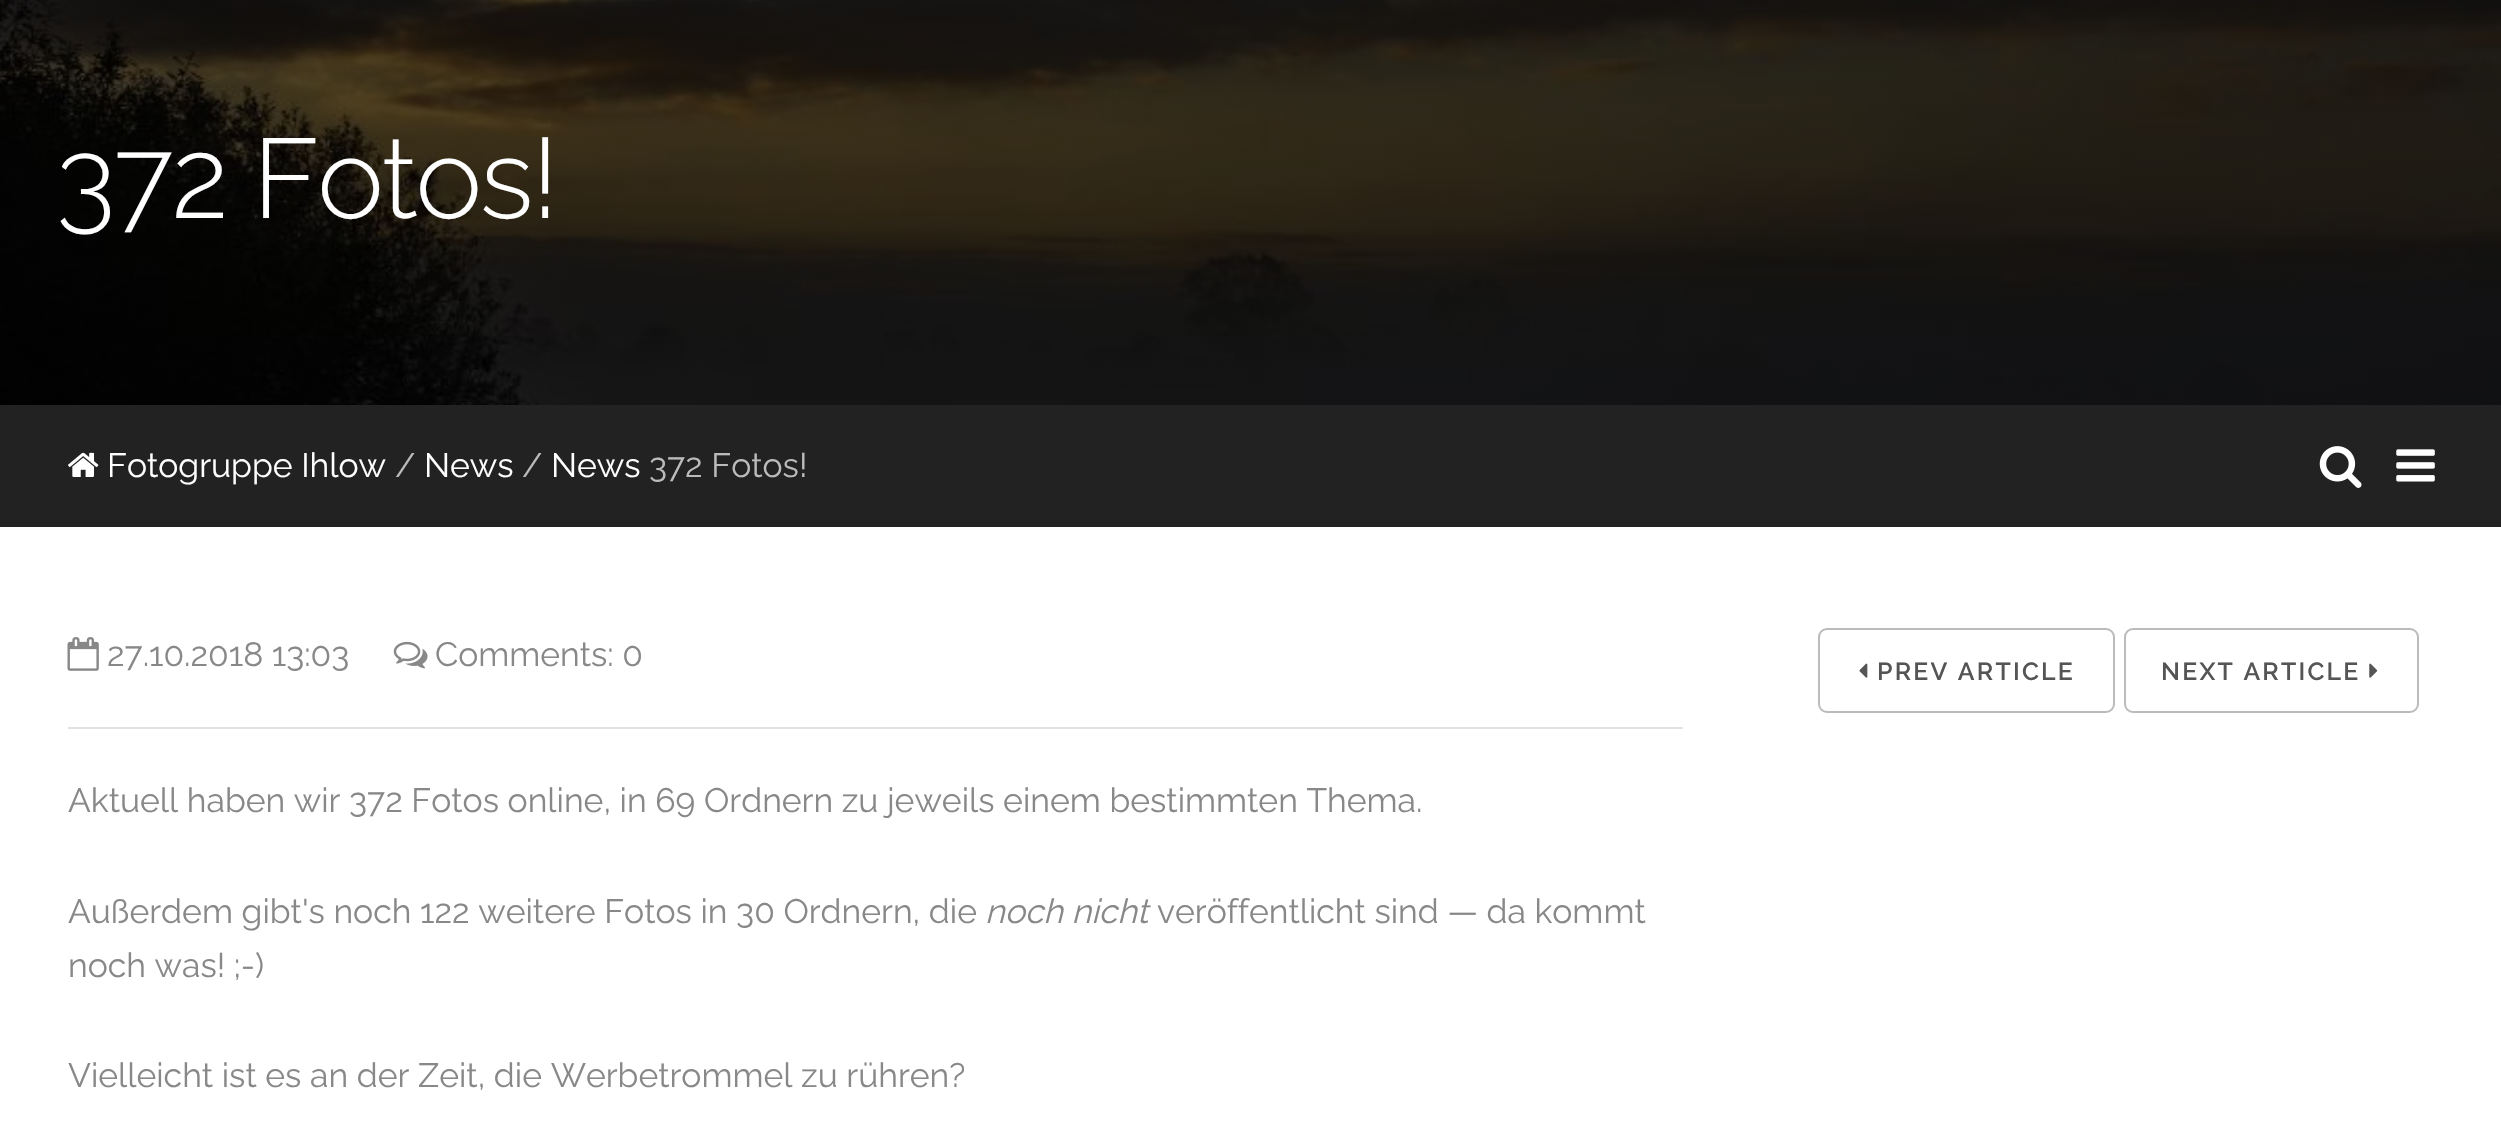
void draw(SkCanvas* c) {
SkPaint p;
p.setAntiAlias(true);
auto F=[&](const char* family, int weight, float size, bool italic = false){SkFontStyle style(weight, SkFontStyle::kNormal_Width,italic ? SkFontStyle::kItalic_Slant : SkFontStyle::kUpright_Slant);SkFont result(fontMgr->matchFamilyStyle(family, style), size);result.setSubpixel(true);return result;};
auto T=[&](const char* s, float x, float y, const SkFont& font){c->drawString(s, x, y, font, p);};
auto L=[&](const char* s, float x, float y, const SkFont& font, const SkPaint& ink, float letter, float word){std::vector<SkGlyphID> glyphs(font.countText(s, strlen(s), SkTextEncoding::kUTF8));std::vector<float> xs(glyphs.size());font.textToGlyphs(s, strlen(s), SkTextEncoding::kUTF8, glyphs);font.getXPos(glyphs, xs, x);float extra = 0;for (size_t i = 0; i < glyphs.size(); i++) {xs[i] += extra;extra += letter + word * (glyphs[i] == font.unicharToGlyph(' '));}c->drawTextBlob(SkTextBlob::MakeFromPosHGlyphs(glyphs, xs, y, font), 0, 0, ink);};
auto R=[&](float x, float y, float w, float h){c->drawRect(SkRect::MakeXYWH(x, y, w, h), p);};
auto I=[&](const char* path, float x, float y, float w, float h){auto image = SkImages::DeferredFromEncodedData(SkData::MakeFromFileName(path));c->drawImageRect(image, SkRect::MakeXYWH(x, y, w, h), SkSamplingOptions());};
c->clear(0xffffffff);
I("1.png",0,0,2501,405);
auto f1 = F("Raleway",300,112.5);
p.setColor(0xffffffff);
L("372 Fotos!",56,218,f1,p,-2.25,0);
p.setColor(0xff222222);
R(0,405,2501,122);
I("2.png",68,452,31,25);
auto f2 = F("Raleway",400,33.75);
p.setColor(0xffffffff);
T("Fotogruppe Ihlow",107,477,f2);
p.setColor(0xffbbbbbb);
T("/",395,477,f2);
p.setColor(0xffffffff);
T("News",424,477,f2);
p.setColor(0xffbbbbbb);
T("/",522,477,f2);
p.setColor(0xffffffff);
T("News",551,477,f2);
p.setColor(0xffbbbbbb);
T("372 Fotos!",649,477,f2);
I("3.png",2319,446,43,42);
I("4.png",2396,449,39,33);
I("5.png",67,637,32,34);
p.setColor(0xff888888);
T("27.10.2018 13:03",107,666,f2);
I("6.png",393,641,35,28);
T("Comments: 0",435,666,f2);
p.setColor(0xffe1e1e1);
R(68,727,1615,2);
p.setColor(0xff888888);
T("Aktuell haben wir 372 Fotos online, in 69 Ordnern zu jeweils einem bestimmten Thema.",68,812,f2);
T("Außerdem gibt's noch 122 weitere Fotos in 30 Ordnern, die",68,923,f2);
auto f3 = F("Raleway",400,33.75,true);
T("noch nicht",985,923,f3);
T("veröffentlicht sind — da kommt",1157,923,f2);
T("noch was! ;-)",68,977,f2);
T("Vielleicht ist es an der Zeit, die Werbetrommel zu rühren?",68,1087,f2);
p.setStroke(true);
p.setStrokeWidth(2);
p.setColor(0xffbbbbbb);
c->drawRoundRect(SkRect::MakeXYWH(1819,629,295,83),8,8,p);
I("7.png",1859,663,9,15);
auto f4 = F("Raleway",600,24.75);
p.setStroke(false);
p.setColor(0xff555555);
L("PREV ARTICLE",1877,680,f4,p,2.25,0);
p.setStroke(true);
p.setColor(0xffbbbbbb);
c->drawRoundRect(SkRect::MakeXYWH(2125,629,293,83),8,8,p);
p.setStroke(false);
p.setColor(0xff555555);
L("NEXT ARTICLE",2161,680,f4,p,2.25,0);
I("8.png",2369,663,9,15);
}
